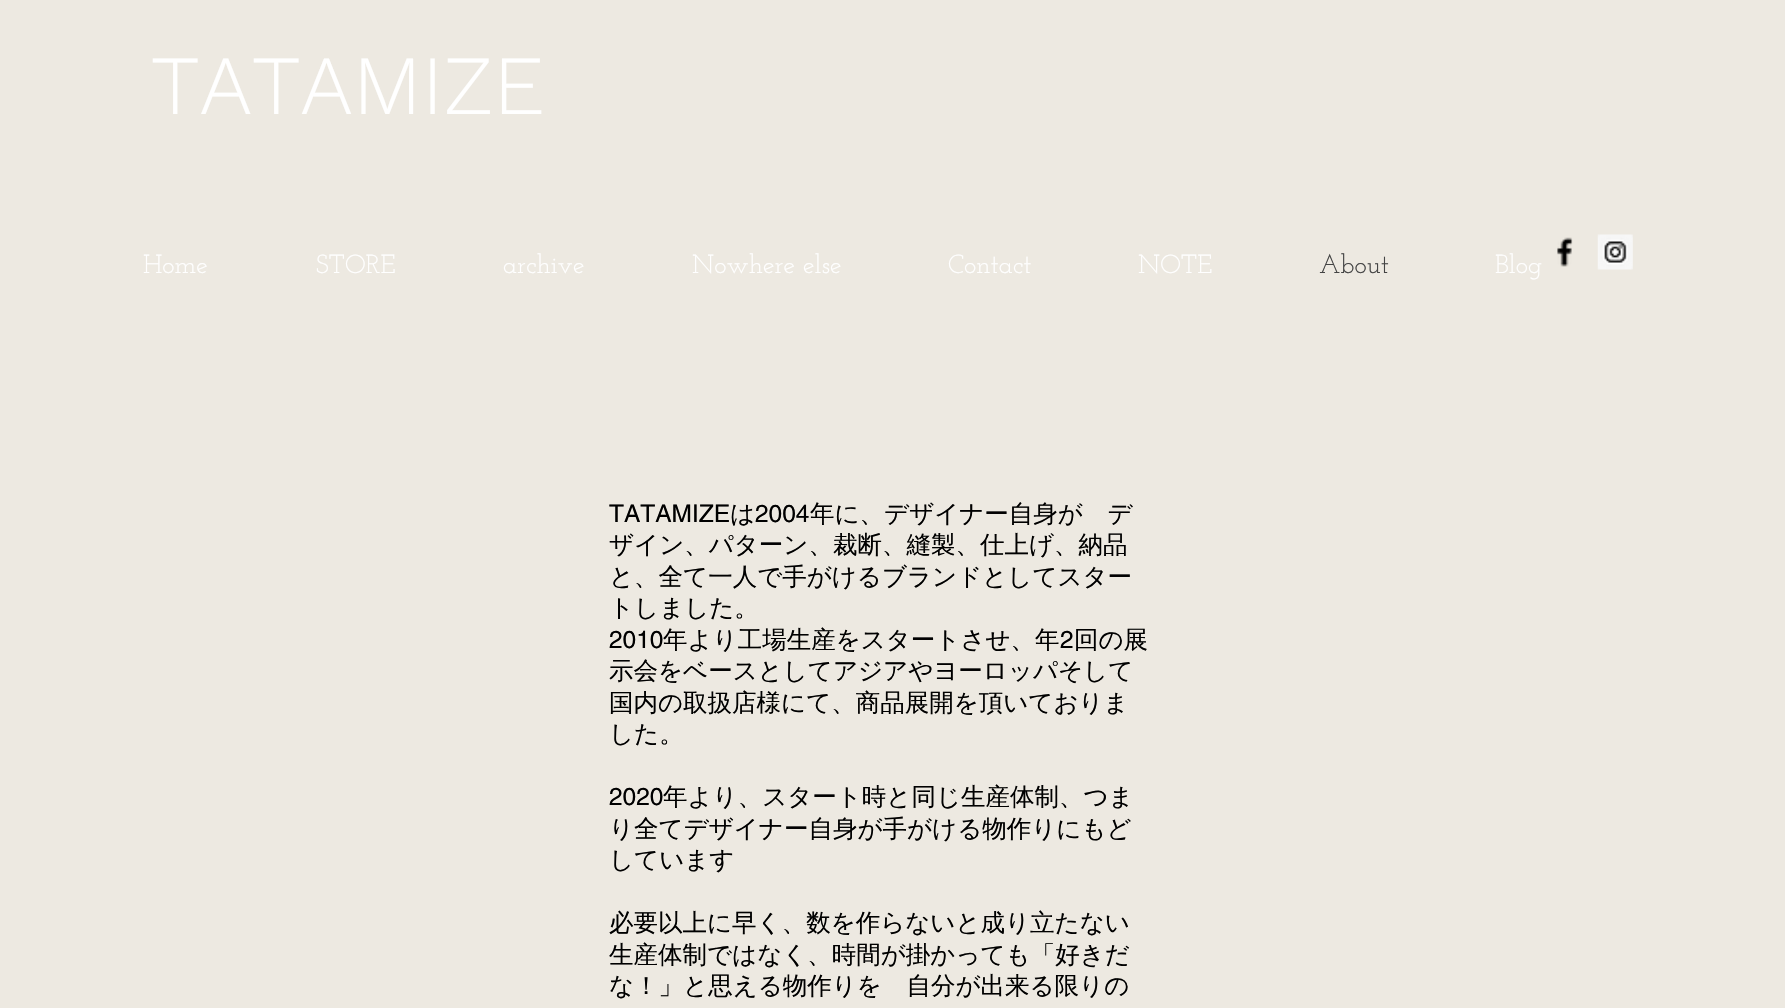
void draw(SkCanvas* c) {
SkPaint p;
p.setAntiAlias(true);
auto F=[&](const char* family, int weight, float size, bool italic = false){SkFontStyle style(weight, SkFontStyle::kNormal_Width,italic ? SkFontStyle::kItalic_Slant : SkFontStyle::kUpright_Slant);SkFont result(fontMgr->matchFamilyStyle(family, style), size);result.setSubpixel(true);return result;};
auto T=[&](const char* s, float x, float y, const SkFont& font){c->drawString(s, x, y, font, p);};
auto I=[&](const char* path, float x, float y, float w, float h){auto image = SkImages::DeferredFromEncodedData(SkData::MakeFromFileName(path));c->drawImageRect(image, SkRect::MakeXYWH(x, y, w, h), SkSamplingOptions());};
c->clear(0xffede9e1);
auto f1 = F("Work Sans",300,84);
p.setColor(0xffffffff);
T("TATAMIZE",151,114,f1);
auto f2 = F("Josefin Slab",400,26.25);
T("Home",143,273,f2);
T("STORE",316,273,f2);
T("archive",503,273,f2);
T("Nowhere else",692,273,f2);
T("Contact",948,273,f2);
T("NOTE",1138,273,f2);
p.setColor(0xff444444);
T("About",1319,273,f2);
p.setColor(0xffffffff);
T("Blog",1495,273,f2);
I("1.png",1557,237,16,30);
I("2.png",1597,234,36,36);
auto f3 = F("helvetica",400,24.5);
p.setColor(0xff000000);
T("TATAMIZE",609,522,f3);
auto f4 = F("WenQuanYi Zen Hei",500,24.5);
T("は",730,522,f4);
T("2004",755,522,f3);
T("年に、デザイナー自身が　デ",810,522,f4);
T("ザイン、パターン、裁断、縫製、仕上げ、納品",609,553,f4);
T("と、全て一人で手がけるブランドとしてスター",609,585,f4);
T("トしました。",609,616,f4);
T("2010",609,648,f3);
T("年より工場生産をスタートさせ、年",663,648,f4);
T("2",1060,648,f3);
T("回の展",1074,648,f4);
T("示会をベースとしてアジアやヨーロッパそして",609,679,f4);
T("国内の取扱店様にて、商品展開を頂いておりま",609,711,f4);
T("した。",609,742,f4);
T("2020",609,805,f3);
T("年より、スタート時と同じ生産体制、つま",663,805,f4);
T("り全てデザイナー自身が手がける物作りにもど",609,837,f4);
T("しています",609,868,f4);
T("必要以上に早く、数を作らないと成り立たない",609,931,f4);
T("生産体制ではなく、時間が掛かっても「好きだ",609,963,f4);
T("な！」と思える物作りを　自分が出来る限りの",609,994,f4);
}
